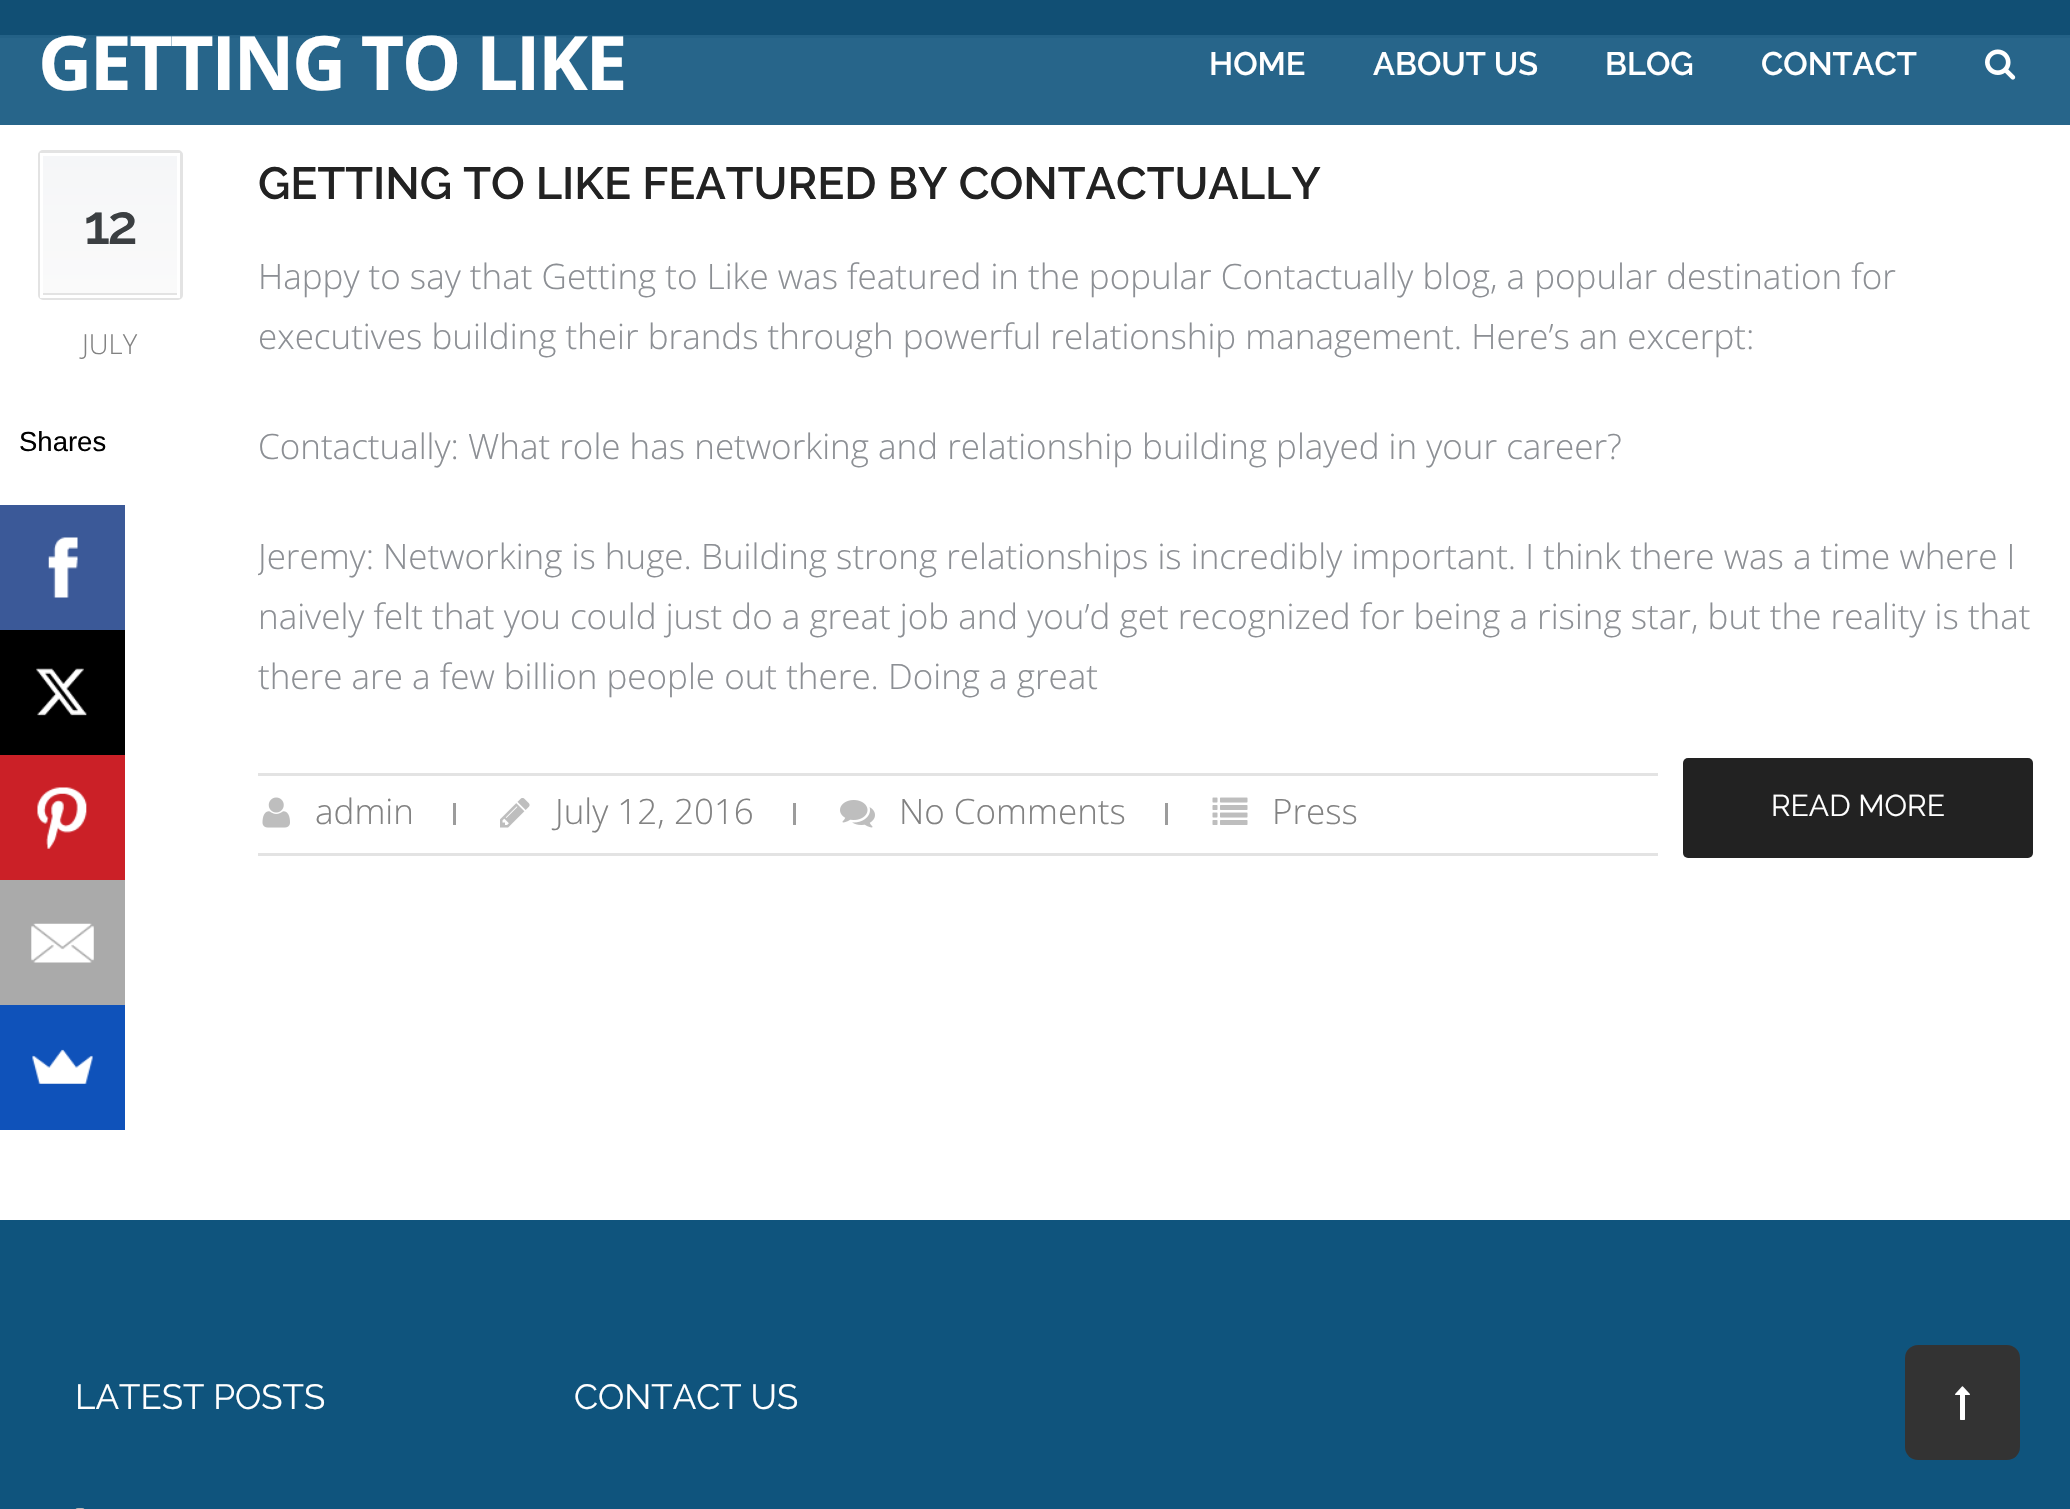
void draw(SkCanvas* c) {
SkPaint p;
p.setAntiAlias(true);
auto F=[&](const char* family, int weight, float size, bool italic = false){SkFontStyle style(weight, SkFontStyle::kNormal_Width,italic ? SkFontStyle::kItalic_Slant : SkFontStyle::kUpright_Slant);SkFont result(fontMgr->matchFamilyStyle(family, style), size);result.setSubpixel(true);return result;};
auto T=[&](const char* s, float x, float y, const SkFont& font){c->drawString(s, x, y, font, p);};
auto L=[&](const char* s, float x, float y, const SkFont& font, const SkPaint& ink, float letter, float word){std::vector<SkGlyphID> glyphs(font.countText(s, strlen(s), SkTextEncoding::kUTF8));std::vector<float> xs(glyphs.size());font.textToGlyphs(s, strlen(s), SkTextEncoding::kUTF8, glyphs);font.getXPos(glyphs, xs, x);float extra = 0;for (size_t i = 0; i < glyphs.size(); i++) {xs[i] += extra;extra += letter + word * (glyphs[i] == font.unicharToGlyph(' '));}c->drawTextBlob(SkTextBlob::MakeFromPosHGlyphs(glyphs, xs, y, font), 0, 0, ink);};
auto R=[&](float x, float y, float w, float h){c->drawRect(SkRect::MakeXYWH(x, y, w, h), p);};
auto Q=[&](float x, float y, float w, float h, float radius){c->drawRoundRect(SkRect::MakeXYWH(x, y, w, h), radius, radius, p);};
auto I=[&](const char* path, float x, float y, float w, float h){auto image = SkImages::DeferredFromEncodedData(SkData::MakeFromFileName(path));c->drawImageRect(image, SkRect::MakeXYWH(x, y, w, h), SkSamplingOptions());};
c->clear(0xffffffff);
p.setColor(0xff27658a);
R(0,38,2070,87);
p.setColor(0xff114f74);
R(0,0,2070,35);
p.setColor(0xff236186);
R(0,35,2070,3);
auto f1 = F("Open Sans",700,75);
p.setColor(0xffffffff);
L("GETTING TO LIKE",38,90,f1,p,-2.5,0);
auto f2 = F("Raleway",600,32.5);
T("HOME",1209,75,f2);
T("ABOUT US",1373,75,f2);
T("BLOG",1605,75,f2);
T("CONTACT",1761,75,f2);
I("1.png",1985,49,31,31);
{
const SkColor colors[] = {0xfff5f6f8,0xfffafafa};
const float stops[] = {0,1};
const SkPoint ends[] = {{110,153}, {110,293}};
p.setShader(SkGradientShader::MakeLinear(ends, colors, stops, 2, SkTileMode::kClamp));
p.setAlpha(255);
}
R(38,153,145,140);
p.setStroke(true);
p.setStrokeWidth(3);
p.setShader(nullptr);
p.setColor(0xffe3e3e3);
c->drawRoundRect(SkRect::MakeXYWH(39.5,151.5,142,147),3.5,3.5,p);
p.setStroke(false);
R(40,293,140,2);
p.setStroke(true);
p.setColor(0xffffffff);
c->drawRect(SkRect::MakeXYWH(41.5,154.5,137,142),p);
auto f3 = F("Raleway",600,55);
p.setStroke(false);
p.setColor(0xff3b3f42);
L("12",84,244,f3,p,-2.5,0);
auto f4 = F("Open Sans",300,27.5);
p.setColor(0xff828282);
T("JULY",82,354,f4);
auto f5 = F("Raleway",600,45);
p.setColor(0xff222222);
T("GETTING TO LIKE FEATURED BY CONTACTUALLY",258,199,f5);
auto f6 = F("Open Sans",300,35);
p.setColor(0xff8c8f94);
T("Happy to say that Getting to Like was featured in the popular Contactually blog, a popular destination for",258,289,f6);
T("executives building their brands through powerful relationship management. Here’s an excerpt:",258,349,f6);
T("Contactually: What role has networking and relationship building played in your career?",258,459,f6);
c->save();
c->clipRect(SkRect::MakeXYWH(258,150,1775,708));
T("Jeremy: Networking is huge. Building strong relationships is incredibly important. I think there was a time where I",258,569,f6);
c->restore();
T("naively felt that you could just do a great job and you’d get recognized for being a rising star, but the reality is that",258,629,f6);
T("there are a few billion people out there. Doing a great",258,689,f6);
p.setColor(0xffe3e3e3);
R(258,773,1400,3);
R(258,853,1400,3);
I("2.png",262,797,28,31);
p.setColor(0xff828282);
T("admin",315,824,f6);
p.setColor(0xff9c9c9c);
R(453,803,3,22);
I("3.png",500,798,30,30);
p.setColor(0xff828282);
T("July 12, 2016",555,824,f6);
p.setColor(0xff9c9c9c);
R(793,803,3,22);
I("4.png",840,800,35,28);
p.setColor(0xff828282);
T("No Comments",899,824,f6);
p.setColor(0xff9c9c9c);
R(1165,803,3,22);
I("5.png",1212,797,36,28);
p.setColor(0xff828282);
T("Press",1272,824,f6);
p.setColor(0xff222222);
Q(1683,758,350,100,5);
auto f7 = F("Raleway",400,30);
p.setColor(0xffffffff);
T("READ MORE",1771,816,f7);
p.setColor(0xff0f547d);
R(0,1220,2070,289);
auto f8 = F("Raleway",400,35);
p.setColor(0xffffffff);
T("LATEST POSTS",75,1409,f8);
p.setColor(0xffb7b7b7);
Q(75,1508,10,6,5);
p.setColor(0xffffffff);
T("CONTACT US",574,1409,f8);
auto f9 = F("Liberation Sans",400,27.5);
p.setColor(0xff000000);
T("Shares",19,451,f9);
p.setColor(0xff3b5998);
R(0,505,125,125);
I("6.png",48,537,30,61);
p.setColor(0xff000000);
R(0,630,125,125);
I("7.png",36,668,51,48);
p.setColor(0xffcb2027);
R(0,755,125,125);
I("8.png",37,787,50,62);
p.setColor(0xffaaaaaa);
R(0,880,125,125);
I("9.png",31,923,63,40);
p.setColor(0xff0f52ba);
R(0,1005,125,125);
I("10.png",32,1049,61,35);
p.setColor(0xff333333);
Q(1905,1345,115,115,13);
I("11.png",1955,1386,15,34);
}
